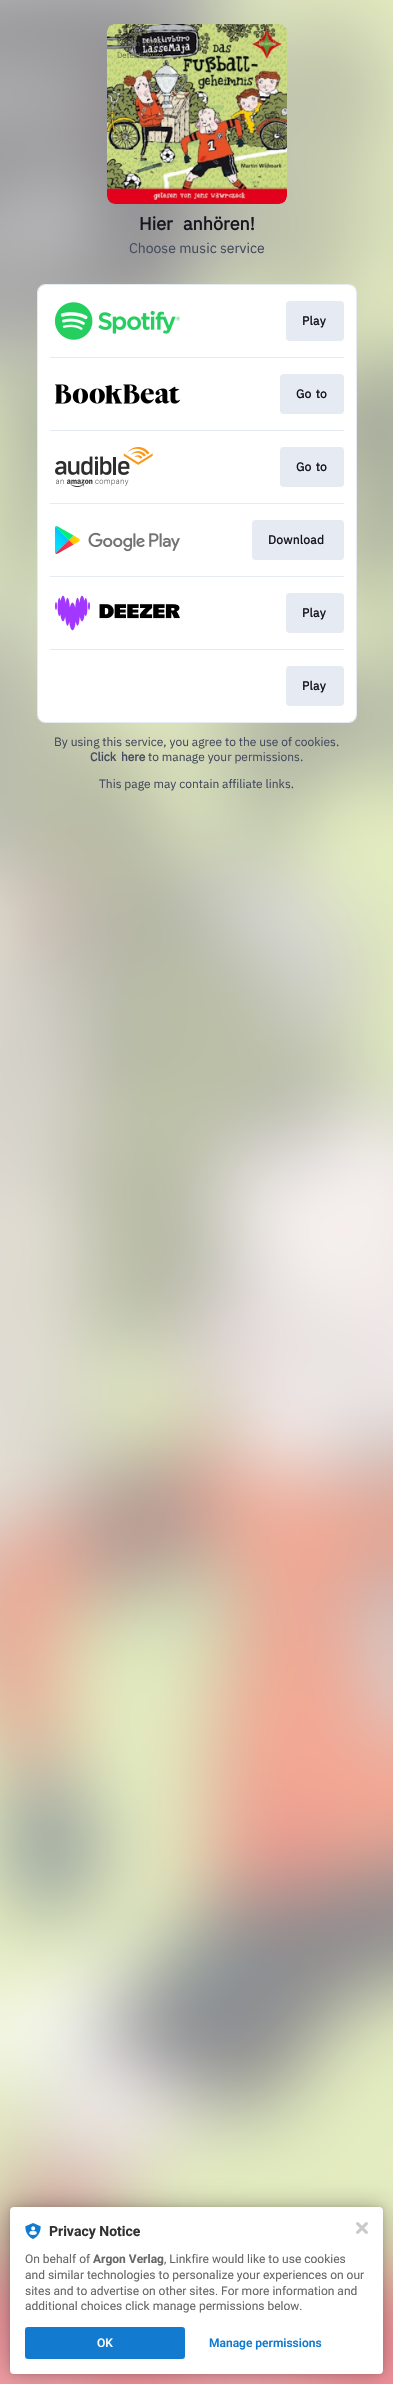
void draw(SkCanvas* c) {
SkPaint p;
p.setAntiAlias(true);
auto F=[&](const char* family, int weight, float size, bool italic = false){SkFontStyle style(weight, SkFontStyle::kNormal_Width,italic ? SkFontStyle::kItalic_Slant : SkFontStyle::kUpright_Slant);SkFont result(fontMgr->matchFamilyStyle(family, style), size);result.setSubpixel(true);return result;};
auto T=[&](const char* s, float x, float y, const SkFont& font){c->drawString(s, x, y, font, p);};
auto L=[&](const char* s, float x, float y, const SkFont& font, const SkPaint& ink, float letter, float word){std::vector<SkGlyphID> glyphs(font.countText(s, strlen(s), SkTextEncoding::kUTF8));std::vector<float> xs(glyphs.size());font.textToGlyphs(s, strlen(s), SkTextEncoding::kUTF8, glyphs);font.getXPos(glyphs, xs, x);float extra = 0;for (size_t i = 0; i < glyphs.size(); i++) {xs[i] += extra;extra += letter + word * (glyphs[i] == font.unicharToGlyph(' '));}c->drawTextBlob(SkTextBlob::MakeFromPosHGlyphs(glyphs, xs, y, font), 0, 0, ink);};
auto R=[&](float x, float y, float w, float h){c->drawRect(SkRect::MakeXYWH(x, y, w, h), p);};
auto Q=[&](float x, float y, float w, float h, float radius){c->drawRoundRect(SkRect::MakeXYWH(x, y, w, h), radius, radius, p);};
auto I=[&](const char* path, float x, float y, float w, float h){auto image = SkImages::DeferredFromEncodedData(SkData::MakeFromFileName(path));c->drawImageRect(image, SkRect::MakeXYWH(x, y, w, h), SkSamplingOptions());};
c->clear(0xffffffff);
I("1.png",0,0,393,2384);
I("2.png",107,24,180,180);
auto f1 = F("IBM Plex Sans",400,8);
p.setColor(0xff595a51);
T("Martin Widm…",117,46,f1);
p.setColor(0xff747a5a);
T("Detektivbüro…",117,58,f1);
p.setColor(0xff9a804a);
T("0:00",260,46,f1);
auto f2 = F("IBM Plex Sans",700,18);
p.setColor(0xff181721);
L("Hier anhören!",139,230,f2,p,0,6);
auto f3 = F("IBM Plex Sans",400,14);
p.setColor(0xff454b5f);
T("Choose music service",129,253,f3);
p.setStroke(true);
p.setStrokeWidth(1);
p.setColor(0xffe6eaf2);
c->drawRoundRect(SkRect::MakeXYWH(37.5,284.5,319,438),7.5,7.5,p);
p.setStroke(false);
p.setColor(0xffffffff);
Q(38,285,318,437,7);
I("3.png",55,302,125,38);
p.setColor(0xffe6eaf2);
Q(286,301,58,40,4);
auto f4 = F("IBM Plex Sans",700,12);
p.setColor(0xff181721);
L("Play",302,325,f4,p,.25,0);
p.setColor(0xffe6eaf2);
R(50,357,294,1);
I("4.png",55,384,125,20);
Q(280,374,64,40,4);
p.setColor(0xff181721);
L("Go to",296,398,f4,p,.25,1);
p.setColor(0xffe6eaf2);
R(50,430,294,1);
I("5.png",55,447,98,40);
Q(280,447,64,40,4);
p.setColor(0xff181721);
L("Go to",296,471,f4,p,.25,1);
p.setColor(0xffe6eaf2);
R(50,503,294,1);
I("6.png",55,526,125,28);
Q(252,520,92,40,4);
p.setColor(0xff181721);
L("Download",268,544,f4,p,.25,0);
p.setColor(0xffe6eaf2);
R(50,576,294,1);
I("7.png",55,595,125,36);
Q(286,593,58,40,4);
p.setColor(0xff181721);
L("Play",302,617,f4,p,.25,0);
p.setColor(0xffe6eaf2);
R(50,649,294,1);
Q(286,666,58,40,4);
p.setColor(0xff181721);
L("Play",302,690,f4,p,.25,0);
auto f5 = F("IBM Plex Sans",400,12);
p.setColor(0xff454b5f);
T("By using this service, you agree to the use of cookies.",54,746,f5);
L("Click here",90,761,f4,p,0,2);
T("to manage your permissions.",148,761,f5);
T("This page may contain affiliate links.",99,788,f5);
p.setColor(0x1f000000);
p.setMaskFilter(SkMaskFilter::MakeBlur(kNormal_SkBlurStyle, 2));
c->drawRoundRect(SkRect::MakeXYWH(10,2207,373,167),4,4,p);
p.setMaskFilter(nullptr);
p.setColor(0x4d000000);
p.setMaskFilter(SkMaskFilter::MakeBlur(kNormal_SkBlurStyle, 12));
c->drawRoundRect(SkRect::MakeXYWH(10,2207,373,167),4,4,p);
p.setMaskFilter(nullptr);
p.setColor(0xffffffff);
Q(10,2207,373,167,4);
I("8.png",356,2222,12,12);
I("9.png",25,2223,16,16);
auto f6 = F("Roboto",700,14);
p.setColor(0xff323232);
T("Privacy Notice",49,2236,f6);
auto f7 = F("Roboto",400,12);
p.setColor(0xff686868);
T("On behalf of",25,2263,f7);
auto f8 = F("Roboto",700,12);
T("Argon Verlag",93,2263,f8);
T(", Linkfire would like to use cookies",164,2263,f7);
T("and similar technologies to personalize your experiences on our",25,2279,f7);
T("sites and to advertise on other sites. For more information and",25,2295,f7);
T("additional choices click manage permissions below.",25,2310,f7);
p.setColor(0xff137bcf);
Q(25,2327,160,32,3);
auto f9 = F("Roboto",500,12);
p.setColor(0xffffffff);
T("OK",97,2347,f9);
auto f10 = F("Roboto",600,12);
p.setColor(0xff137bcf);
T("Manage permissions",209,2347,f10);
}
